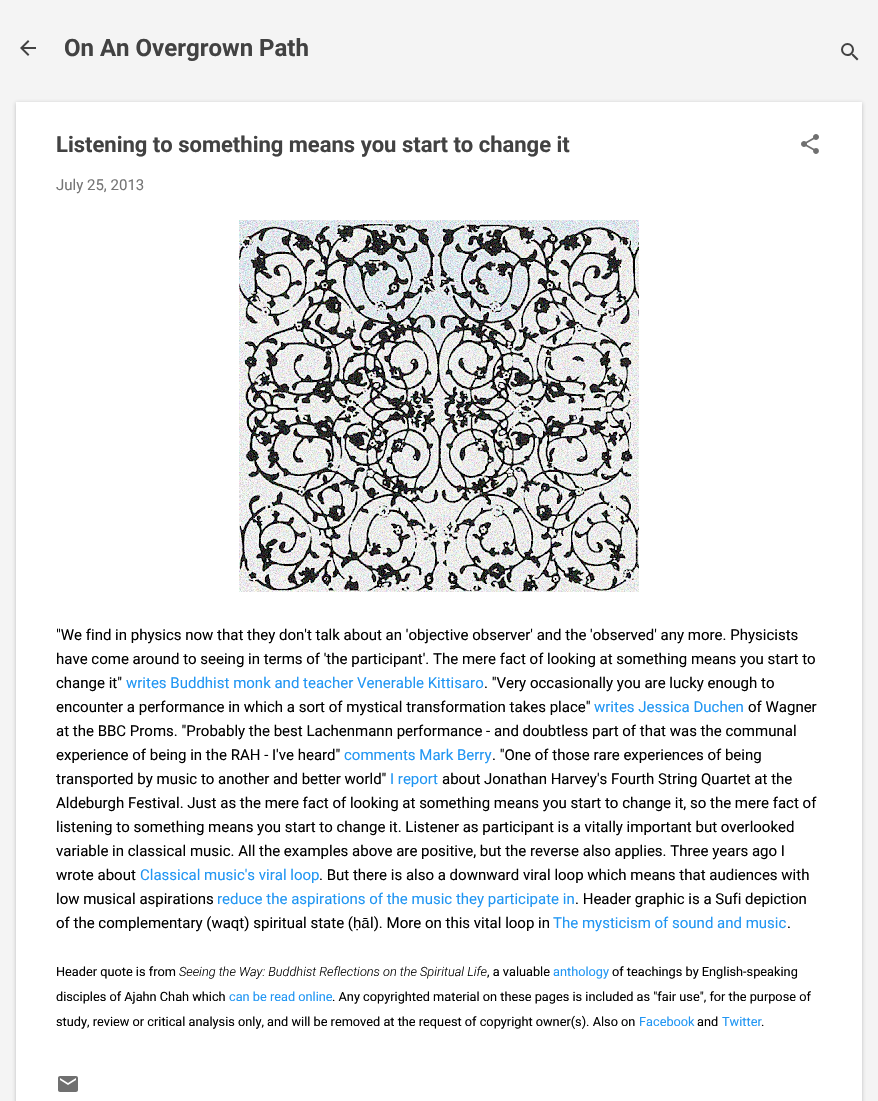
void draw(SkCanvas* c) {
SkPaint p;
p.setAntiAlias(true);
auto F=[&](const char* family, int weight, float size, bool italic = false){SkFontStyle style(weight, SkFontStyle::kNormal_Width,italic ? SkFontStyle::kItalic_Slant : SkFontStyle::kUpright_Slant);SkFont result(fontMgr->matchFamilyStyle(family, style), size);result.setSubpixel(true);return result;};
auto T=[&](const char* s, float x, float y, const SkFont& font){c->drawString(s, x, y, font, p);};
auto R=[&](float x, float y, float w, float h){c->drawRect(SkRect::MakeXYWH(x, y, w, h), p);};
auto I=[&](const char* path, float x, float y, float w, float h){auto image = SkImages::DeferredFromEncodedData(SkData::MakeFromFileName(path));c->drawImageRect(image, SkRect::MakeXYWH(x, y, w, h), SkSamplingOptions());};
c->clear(0xfff4f4f4);
I("1.png",20,40,16,16);
auto f1 = F("Roboto",700,24);
p.setColor(0xff424242);
T("On An Overgrown Path",64,56,f1);
I("2.png",841,43,18,18);
p.setColor(0x4d3c4043);
p.setMaskFilter(SkMaskFilter::MakeBlur(kNormal_SkBlurStyle, 2));
c->drawRect(SkRect::MakeXYWH(16,103,846,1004),p);
p.setMaskFilter(nullptr);
p.setColor(0xffffffff);
R(16,102,846,999);
auto f2 = F("Roboto",700,22);
p.setColor(0xff424242);
T("Listening to something means you start to change it",56,152,f2);
I("3.png",801,134,18,20);
auto f3 = F("Roboto",400,15);
p.setColor(0xff757575);
T("July 25, 2013",56,190,f3);
I("4.png",239,220,400,372);
p.setColor(0xff000000);
T("\"We find in physics now that they don't talk about an 'objective observer' and the 'observed' any more. Physicists",56,640,f3);
T("have come around to seeing in terms of 'the participant'. The mere fact of looking at something means you start to",56,664,f3);
T("change it\"",56,688,f3);
p.setColor(0xff2196f3);
T("writes Buddhist monk and teacher Venerable Kittisaro",126,688,f3);
p.setColor(0xff000000);
T(". \"Very occasionally you are lucky enough to",484,688,f3);
T("encounter a performance in which a sort of mystical transformation takes place\"",56,712,f3);
p.setColor(0xff2196f3);
T("writes Jessica Duchen",594,712,f3);
p.setColor(0xff000000);
T("of Wagner",748,712,f3);
T("at the BBC Proms. \"Probably the best Lachenmann performance - and doubtless part of that was the communal",56,736,f3);
T("experience of being in the RAH - I've heard\"",56,760,f3);
p.setColor(0xff2196f3);
T("comments Mark Berry",344,760,f3);
p.setColor(0xff000000);
T(". \"One of those rare experiences of being",492,760,f3);
T("transported by music to another and better world\"",56,784,f3);
p.setColor(0xff2196f3);
T("I report",390,784,f3);
p.setColor(0xff000000);
T("about Jonathan Harvey's Fourth String Quartet at the",442,784,f3);
T("Aldeburgh Festival. Just as the mere fact of looking at something means you start to change it, so the mere fact of",56,808,f3);
T("listening to something means you start to change it. Listener as participant is a vitally important but overlooked",56,832,f3);
T("variable in classical music. All the examples above are positive, but the reverse also applies. Three years ago I",56,856,f3);
T("wrote about",56,880,f3);
p.setColor(0xff2196f3);
T("Classical music's viral loop",140,880,f3);
p.setColor(0xff000000);
T(". But there is also a downward viral loop which means that audiences with",319,880,f3);
T("low musical aspirations",56,904,f3);
p.setColor(0xff2196f3);
T("reduce the aspirations of the music they participate in",217,904,f3);
p.setColor(0xff000000);
T(". Header graphic is a Sufi depiction",575,904,f3);
T("of the complementary (waqt) spiritual state (",56,928,f3);
auto f4 = F("Liberation Sans",400,15);
T("ḥā",353,928,f4);
T("l). More on this vital loop in",370,928,f3);
p.setColor(0xff2196f3);
T("The mysticism of sound and music",553,928,f3);
p.setColor(0xff000000);
T(".",787,928,f3);
auto f5 = F("Roboto",400,12.75);
T("Header quote is from",56,976,f5);
auto f6 = F("Roboto",300,12.75,true);
T("Seeing the Way: Buddhist Reflections on the Spiritual Life",179,976,f6);
T(", a valuable",487,976,f5);
p.setColor(0xff2196f3);
T("anthology",553,976,f5);
p.setColor(0xff000000);
T("of teachings by English-speaking",612,976,f5);
T("disciples of Ajahn Chah which",56,1001,f5);
p.setColor(0xff2196f3);
T("can be read online",229,1001,f5);
p.setColor(0xff000000);
T(". Any copyrighted material on these pages is included as \"fair use\", for the purpose of",332,1001,f5);
T("study, review or critical analysis only, and will be removed at the request of copyright owner(s). Also on",56,1026,f5);
p.setColor(0xff2196f3);
T("Facebook",639,1026,f5);
p.setColor(0xff000000);
T("and",697,1026,f5);
p.setColor(0xff2196f3);
T("Twitter",722,1026,f5);
p.setColor(0xff000000);
T(".",761,1026,f5);
I("5.png",58,1076,20,16);
}
